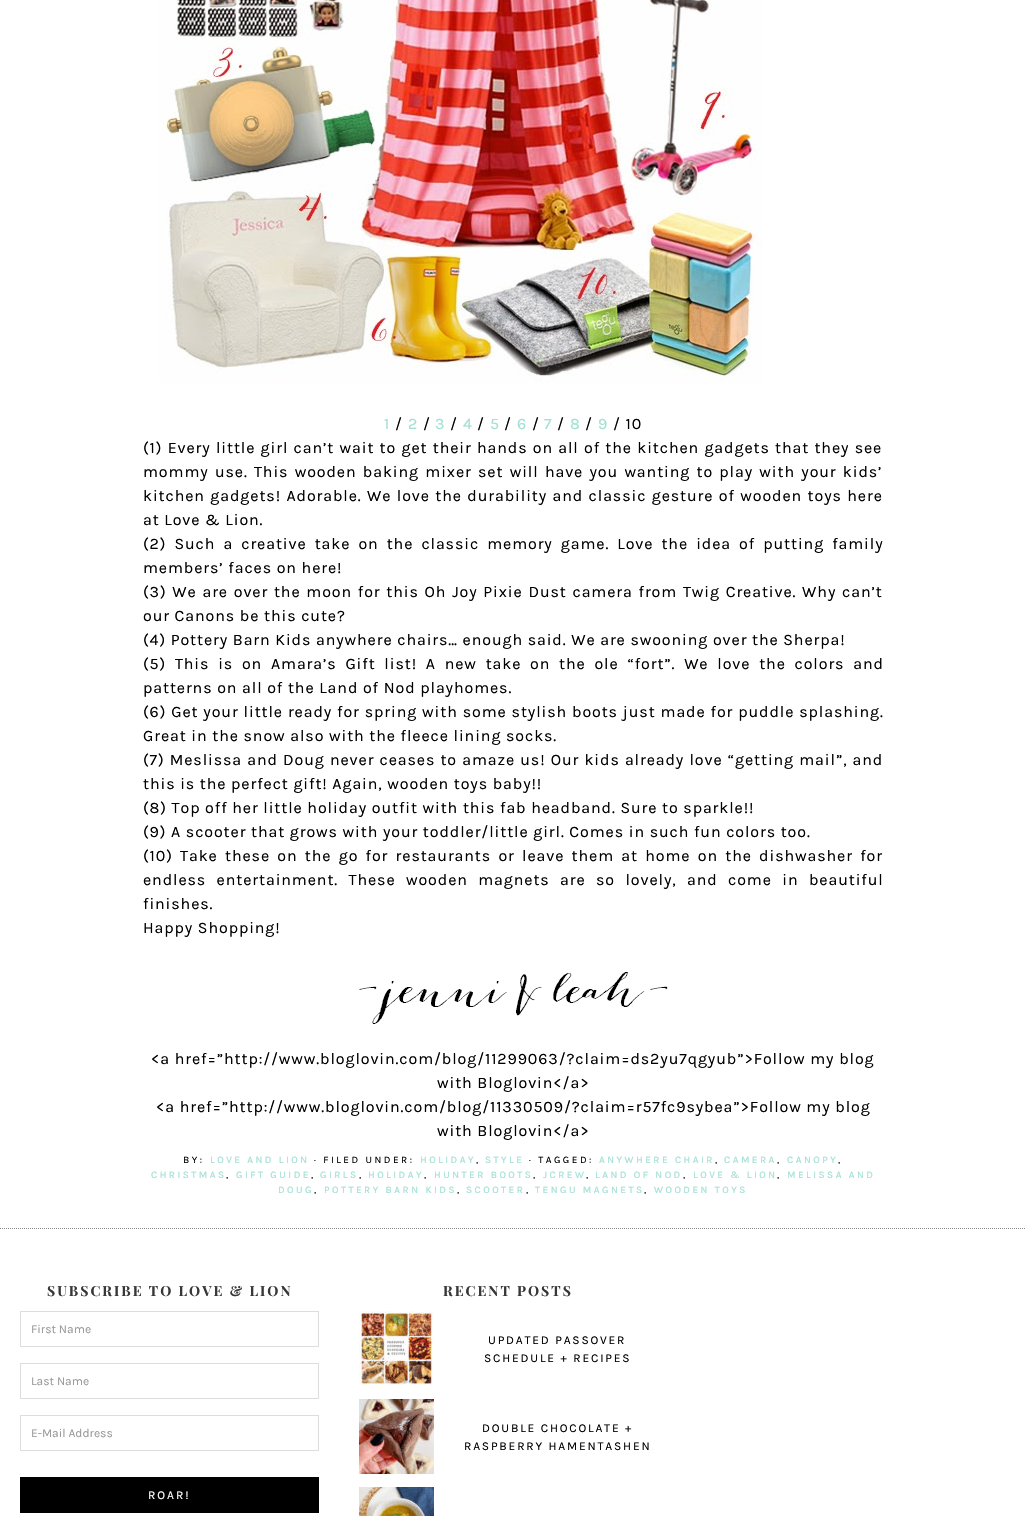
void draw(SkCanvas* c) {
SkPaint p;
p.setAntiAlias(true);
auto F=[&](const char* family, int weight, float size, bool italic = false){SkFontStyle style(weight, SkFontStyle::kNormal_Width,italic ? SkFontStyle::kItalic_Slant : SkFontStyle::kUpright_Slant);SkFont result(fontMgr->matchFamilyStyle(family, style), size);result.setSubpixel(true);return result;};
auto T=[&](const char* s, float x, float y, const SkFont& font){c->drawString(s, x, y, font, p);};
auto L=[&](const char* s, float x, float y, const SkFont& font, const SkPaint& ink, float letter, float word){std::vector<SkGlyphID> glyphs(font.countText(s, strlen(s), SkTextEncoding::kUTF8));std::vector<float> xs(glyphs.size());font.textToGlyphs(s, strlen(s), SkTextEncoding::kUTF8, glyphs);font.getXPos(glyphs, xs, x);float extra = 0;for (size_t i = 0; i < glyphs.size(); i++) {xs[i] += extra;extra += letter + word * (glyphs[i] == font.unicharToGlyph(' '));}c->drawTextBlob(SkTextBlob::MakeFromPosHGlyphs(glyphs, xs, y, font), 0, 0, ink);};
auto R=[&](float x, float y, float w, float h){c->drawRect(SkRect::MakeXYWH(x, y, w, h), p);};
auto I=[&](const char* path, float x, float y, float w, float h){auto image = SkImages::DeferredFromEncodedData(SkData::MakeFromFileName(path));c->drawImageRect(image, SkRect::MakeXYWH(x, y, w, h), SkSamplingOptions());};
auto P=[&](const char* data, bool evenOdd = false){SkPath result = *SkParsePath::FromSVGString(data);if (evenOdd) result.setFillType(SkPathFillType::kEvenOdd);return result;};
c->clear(0xffffffff);
I("1.png",159,0,604,383);
auto f1 = F("Karla",400,16);
p.setColor(0xffa4e0d5);
L("1",384,429,f1,p,.9,0);
p.setColor(0xff000000);
L("/",395,429,f1,p,.9,0);
p.setColor(0xffa4e0d5);
L("2",408,429,f1,p,.9,0);
p.setColor(0xff000000);
L("/",423,429,f1,p,.9,0);
p.setColor(0xffa4e0d5);
L("3",435,429,f1,p,.9,0);
p.setColor(0xff000000);
L("/",450,429,f1,p,.9,0);
p.setColor(0xffa4e0d5);
L("4",463,429,f1,p,.9,0);
p.setColor(0xff000000);
L("/",477,429,f1,p,.9,0);
p.setColor(0xffa4e0d5);
L("5",490,429,f1,p,.9,0);
p.setColor(0xff000000);
L("/",504,429,f1,p,.9,0);
p.setColor(0xffa4e0d5);
L("6",517,429,f1,p,.9,0);
p.setColor(0xff000000);
L("/",532,429,f1,p,.9,0);
p.setColor(0xffa4e0d5);
L("7",544,429,f1,p,.9,0);
p.setColor(0xff000000);
L("/",557,429,f1,p,.9,0);
p.setColor(0xffa4e0d5);
L("8",570,429,f1,p,.9,0);
p.setColor(0xff000000);
L("/",585,429,f1,p,.9,0);
p.setColor(0xffa4e0d5);
L("9",598,429,f1,p,.9,0);
p.setColor(0xff000000);
L("/ 10",613,429,f1,p,.9,0);
L("(1) Every little girl can’t wait to get their hands on all of the kitchen gadgets that they see",143,453,f1,p,.9,.6);
L("mommy use. This wooden baking mixer set will have you wanting to play with your kids’",143,477,f1,p,.9,1.6);
L("kitchen gadgets! Adorable. We love the durability and classic gesture of wooden toys here",143,501,f1,p,.9,.75);
L("at Love & Lion.",143,525,f1,p,.9,0);
L("(2) Such a creative take on the classic memory game. Love the idea of putting family",143,549,f1,p,.9,3.4);
L("members’ faces on here!",143,573,f1,p,.9,0);
L("(3) We are over the moon for this Oh Joy Pixie Dust camera from Twig Creative. Why can’t",143,597,f1,p,.9,1.1);
L("our Canons be this cute?",143,621,f1,p,.9,0);
L("(4) Pottery Barn Kids anywhere chairs… enough said. We are swooning over the Sherpa!",143,645,f1,p,.9,0);
L("(5) This is on Amara’s Gift list! A new take on the ole “fort”. We love the colors and",143,669,f1,p,.9,4.1);
L("patterns on all of the Land of Nod playhomes.",143,693,f1,p,.9,0);
L("(6) Get your little ready for spring with some stylish boots just made for puddle splashing.",143,717,f1,p,.9,.25);
L("Great in the snow also with the fleece lining socks.",143,741,f1,p,.9,0);
L("(7) Meslissa and Doug never ceases to amaze us! Our kids already love “getting mail”, and",143,765,f1,p,.9,.5);
L("this is the perfect gift! Again, wooden toys baby!!",143,789,f1,p,.9,0);
L("(8) Top off her little holiday outfit with this fab headband. Sure to sparkle!!",143,813,f1,p,.9,0);
L("(9) A scooter that grows with your toddler/little girl. Comes in such fun colors too.",143,837,f1,p,.9,0);
L("(10) Take these on the go for restaurants or leave them at home on the dishwasher for",143,861,f1,p,.9,2.6);
L("endless entertainment. These wooden magnets are so lovely, and come in beautiful",143,885,f1,p,.9,5.75);
L("finishes.",143,909,f1,p,.9,0);
L("Happy Shopping!",143,933,f1,p,.9,0);
I("2.png",359,972,309,52);
L("<a href=”http://www.bloglovin.com/blog/11299063/?claim=ds2yu7qgyub”>Follow my blog",151,1064,f1,p,.9,0);
L("with Bloglovin</a>",437,1088,f1,p,.9,0);
L("<a href=”http://www.bloglovin.com/blog/11330509/?claim=r57fc9sybea”>Follow my blog",156,1112,f1,p,.9,0);
L("with Bloglovin</a>",437,1136,f1,p,.9,0);
auto f2 = F("Karla",400,10);
L("BY:",183,1163,f2,p,2.5,0);
p.setColor(0xffa4e0d5);
L("LOVE AND LION",210,1163,f2,p,2.5,0);
p.setColor(0xff000000);
L("· FILED UNDER:",314,1163,f2,p,2.5,0);
p.setColor(0xffa4e0d5);
L("HOLIDAY",420,1163,f2,p,2.5,0);
p.setColor(0xff000000);
L(",",476,1163,f2,p,2.5,0);
p.setColor(0xffa4e0d5);
L("STYLE",485,1163,f2,p,2.5,0);
p.setColor(0xff000000);
L("· TAGGED:",529,1163,f2,p,2.5,0);
p.setColor(0xffa4e0d5);
L("ANYWHERE CHAIR",599,1163,f2,p,2.5,0);
p.setColor(0xff000000);
L(",",715,1163,f2,p,2.5,0);
p.setColor(0xffa4e0d5);
L("CAMERA",724,1163,f2,p,2.5,0);
p.setColor(0xff000000);
L(",",777,1163,f2,p,2.5,0);
p.setColor(0xffa4e0d5);
L("CANOPY",787,1163,f2,p,2.5,0);
p.setColor(0xff000000);
L(",",838,1163,f2,p,2.5,0);
p.setColor(0xffa4e0d5);
L("CHRISTMAS",151,1178,f2,p,2.5,0);
p.setColor(0xff000000);
L(",",226,1178,f2,p,2.5,0);
p.setColor(0xffa4e0d5);
L("GIFT GUIDE",236,1178,f2,p,2.5,0);
p.setColor(0xff000000);
L(",",311,1178,f2,p,2.5,0);
p.setColor(0xffa4e0d5);
L("GIRLS",320,1178,f2,p,2.5,0);
p.setColor(0xff000000);
L(",",359,1178,f2,p,2.5,0);
p.setColor(0xffa4e0d5);
L("HOLIDAY",368,1178,f2,p,2.5,0);
p.setColor(0xff000000);
L(",",424,1178,f2,p,2.5,0);
p.setColor(0xffa4e0d5);
L("HUNTER BOOTS",434,1178,f2,p,2.5,0);
p.setColor(0xff000000);
L(",",533,1178,f2,p,2.5,0);
p.setColor(0xffa4e0d5);
L("JCREW",543,1178,f2,p,2.5,0);
p.setColor(0xff000000);
L(",",586,1178,f2,p,2.5,0);
p.setColor(0xffa4e0d5);
L("LAND OF NOD",595,1178,f2,p,2.5,0);
p.setColor(0xff000000);
L(",",683,1178,f2,p,2.5,0);
p.setColor(0xffa4e0d5);
L("LOVE & LION",693,1178,f2,p,2.5,0);
p.setColor(0xff000000);
L(",",777,1178,f2,p,2.5,0);
p.setColor(0xffa4e0d5);
L("MELISSA AND",787,1178,f2,p,2.5,0);
L("DOUG",278,1193,f2,p,2.5,0);
p.setColor(0xff000000);
L(",",314,1193,f2,p,2.5,0);
p.setColor(0xffa4e0d5);
L("POTTERY BARN KIDS",324,1193,f2,p,2.5,0);
p.setColor(0xff000000);
L(",",457,1193,f2,p,2.5,0);
p.setColor(0xffa4e0d5);
L("SCOOTER",466,1193,f2,p,2.5,0);
p.setColor(0xff000000);
L(",",526,1193,f2,p,2.5,0);
p.setColor(0xffa4e0d5);
L("TENGU MAGNETS",535,1193,f2,p,2.5,0);
p.setColor(0xff000000);
L(",",644,1193,f2,p,2.5,0);
p.setColor(0xffa4e0d5);
L("WOODEN TOYS",654,1193,f2,p,2.5,0);
p.setStroke(true);
p.setStrokeWidth(1);
p.setColor(0xff888888);
p.setPathEffect(SkDashPathEffect::Make({{1,1}}, 0));
c->drawPath(P("M0 1228.5h1026"),p);
p.setPathEffect(nullptr);
auto f3 = F("Playfair Display",700,14);
p.setStroke(false);
p.setColor(0xff373737);
L("SUBSCRIBE TO LOVE & LION",47,1296,f3,p,2,0);
p.setStroke(true);
p.setColor(0xffdddddd);
c->drawRect(SkRect::MakeXYWH(20.5,1311.5,298,35),p);
auto f4 = F("Karla",400,12);
p.setStroke(false);
p.setColor(0xff999999);
T("First Name",31,1333,f4);
p.setStroke(true);
p.setColor(0xffdddddd);
c->drawRect(SkRect::MakeXYWH(20.5,1363.5,298,35),p);
p.setStroke(false);
p.setColor(0xff999999);
T("Last Name",31,1385,f4);
p.setStroke(true);
p.setColor(0xffdddddd);
c->drawRect(SkRect::MakeXYWH(20.5,1415.5,298,35),p);
p.setStroke(false);
p.setColor(0xff999999);
T("E-Mail Address",31,1437,f4);
p.setColor(0xff000000);
R(20,1477,299,36);
p.setColor(0xffffffff);
L("ROAR!",148,1499,f4,p,2,0);
p.setColor(0xff373737);
L("RECENT POSTS",443,1296,f3,p,2,0);
I("3.png",359,1311,75,75);
p.setColor(0xff000000);
L("UPDATED PASSOVER",488,1344,f4,p,1.8,0);
L("SCHEDULE + RECIPES",484,1362,f4,p,1.8,0);
I("4.png",359,1399,75,75);
L("DOUBLE CHOCOLATE +",482,1432,f4,p,1.8,0);
L("RASPBERRY HAMENTASHEN",464,1450,f4,p,1.8,0);
I("5.png",359,1487,75,29);
}
